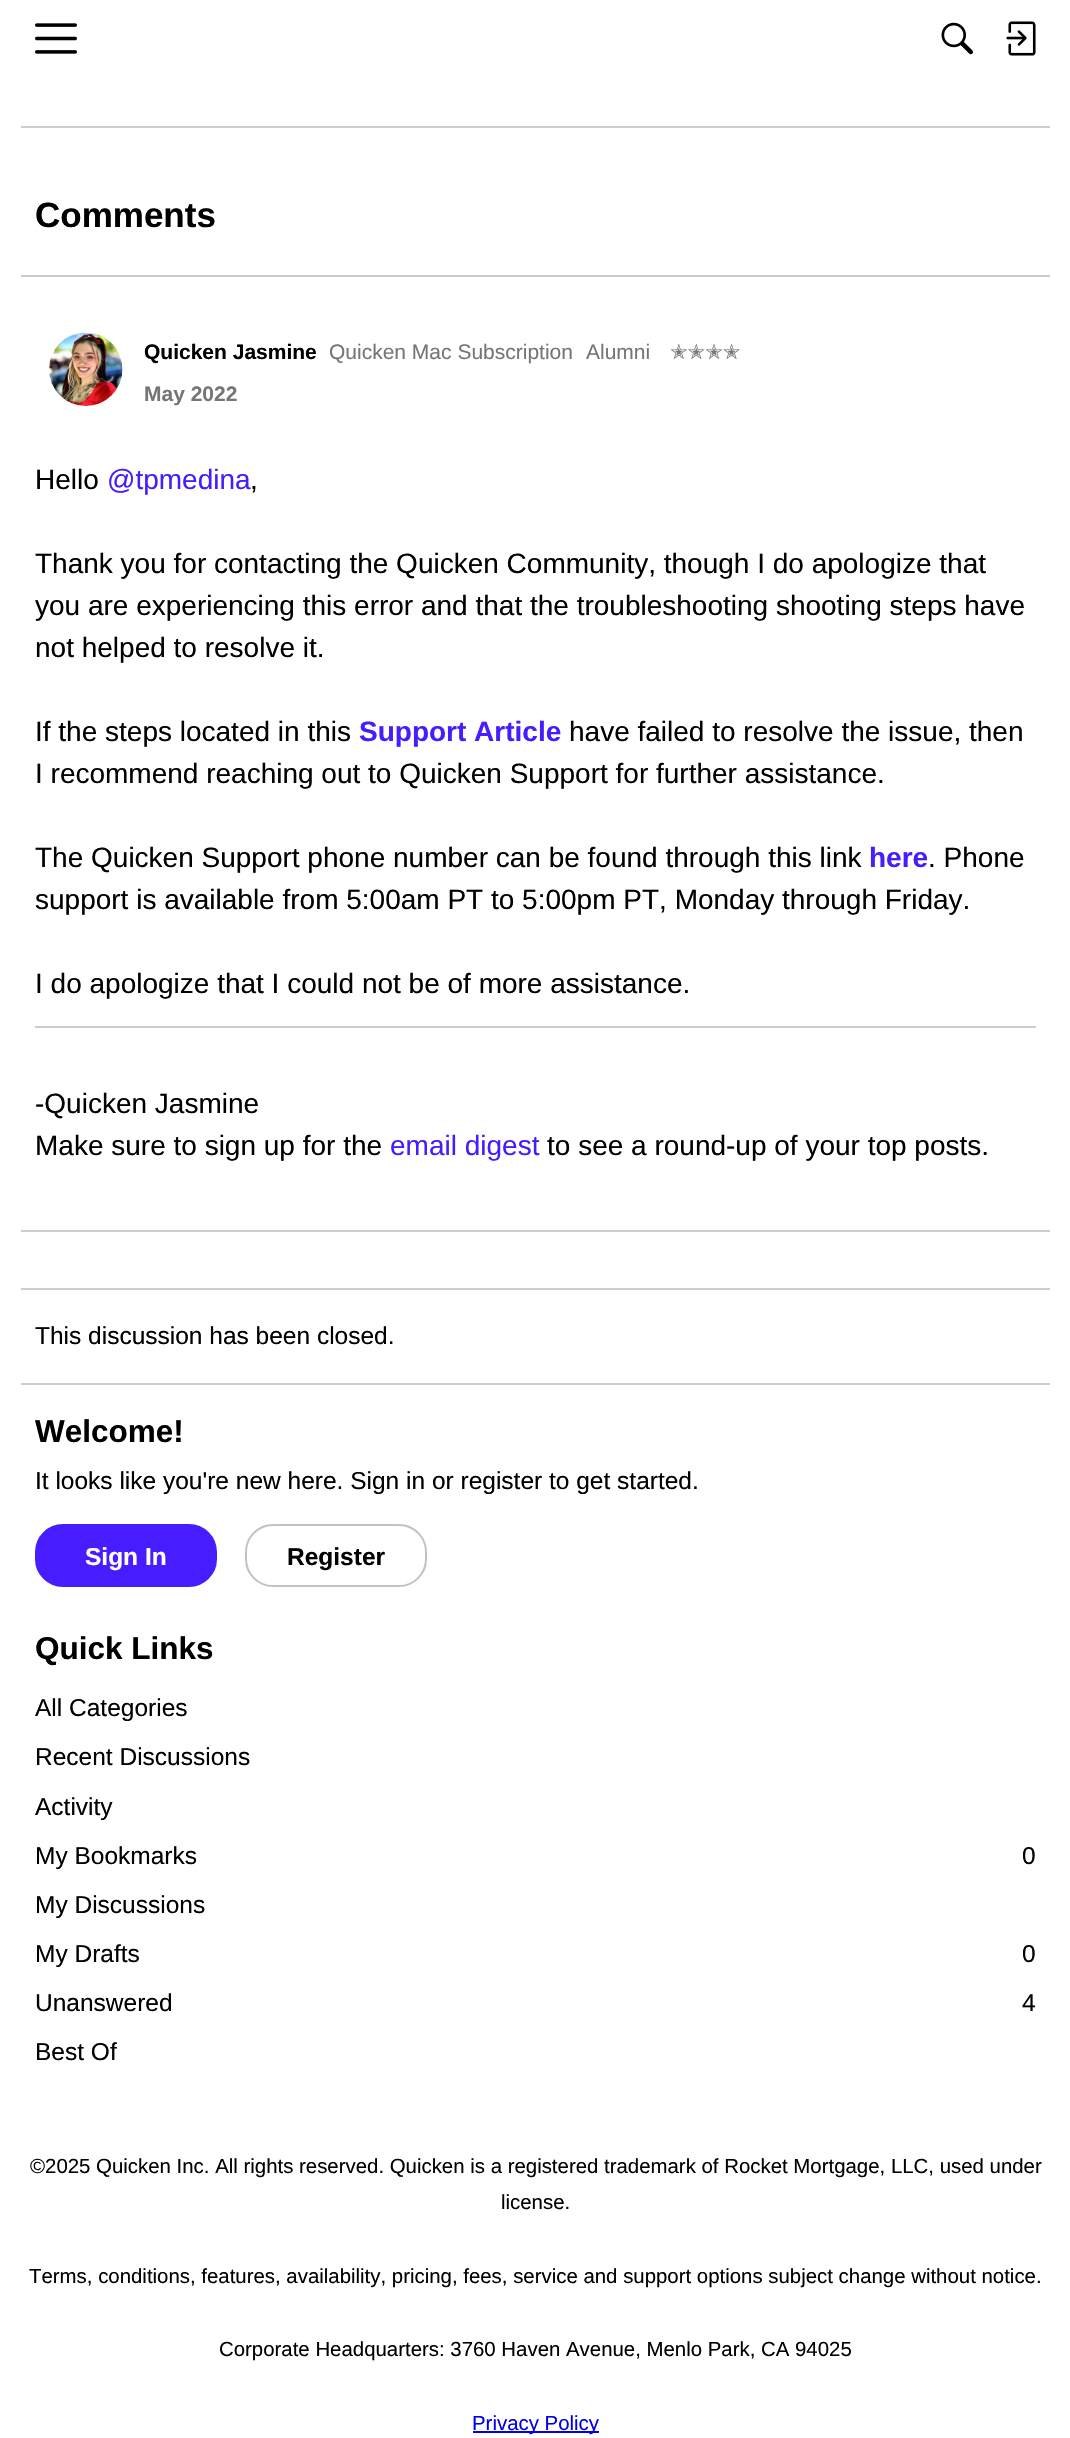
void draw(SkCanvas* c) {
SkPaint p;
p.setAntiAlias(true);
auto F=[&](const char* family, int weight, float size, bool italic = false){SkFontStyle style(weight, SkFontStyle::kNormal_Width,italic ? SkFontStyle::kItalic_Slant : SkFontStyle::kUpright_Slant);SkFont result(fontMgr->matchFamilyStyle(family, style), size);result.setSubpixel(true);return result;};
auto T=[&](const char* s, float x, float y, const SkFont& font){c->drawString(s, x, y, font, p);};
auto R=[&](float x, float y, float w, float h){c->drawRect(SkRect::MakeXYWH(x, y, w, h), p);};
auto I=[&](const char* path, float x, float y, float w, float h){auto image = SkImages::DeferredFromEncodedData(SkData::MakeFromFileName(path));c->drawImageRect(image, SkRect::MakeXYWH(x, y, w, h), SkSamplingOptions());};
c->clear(0xffffffff);
I("1.png",35,23,42,31);
I("2.png",941,22,32,33);
I("3.png",1006,21,30,35);
p.setColor(0xffcccccc);
R(21,126,1029,2);
auto f1 = F("Liberation Sans",700,35);
p.setColor(0xff000000);
T("Comments",35,227,f1);
p.setColor(0xffcccccc);
R(21,275,1029,2);
I("4.png",49,332,74,74);
auto f2 = F("Liberation Sans",700,21);
p.setColor(0xff000000);
T("Quicken Jasmine",144,359,f2);
auto f3 = F("Liberation Sans",400,21);
p.setColor(0xff767676);
T("Quicken Mac Subscription",329,359,f3);
T("Alumni",586,359,f3);
auto f4 = F("DejaVu Sans",400,21);
T("✭✭✭✭",670,359,f4);
T("May 2022",144,401,f2);
auto f5 = F("Liberation Sans",400,28);
p.setColor(0xff000000);
T("Hello",35,489,f5);
p.setColor(0xff471cff);
T("@tpmedina",107,489,f5);
p.setColor(0xff000000);
T(",",250,489,f5);
T("Thank you for contacting the Quicken Community, though I do apologize that",35,573,f5);
T("you are experiencing this error and that the troubleshooting shooting steps have",35,615,f5);
T("not helped to resolve it.",35,657,f5);
T("If the steps located in this",35,741,f5);
auto f6 = F("Liberation Sans",700,28);
p.setColor(0xff471cff);
T("Support Article",359,741,f6);
p.setColor(0xff000000);
T("have failed to resolve the issue, then",569,741,f5);
T("I recommend reaching out to Quicken Support for further assistance.",35,783,f5);
T("The Quicken Support phone number can be found through this link",35,867,f5);
p.setColor(0xff471cff);
T("here",869,867,f6);
p.setColor(0xff000000);
T(". Phone",928,867,f5);
T("support is available from 5:00am PT to 5:00pm PT, Monday through Friday.",35,909,f5);
T("I do apologize that I could not be of more assistance.",35,993,f5);
p.setColor(0xffcccccc);
R(35,1026,1001,2);
p.setColor(0xff000000);
T("-Quicken Jasmine",35,1113,f5);
T("Make sure to sign up for the",35,1155,f5);
p.setColor(0xff471cff);
T("email digest",390,1155,f5);
p.setColor(0xff000000);
T("to see a round-up of your top posts.",547,1155,f5);
p.setColor(0xffcccccc);
R(21,1230,1029,2);
R(21,1288,1029,2);
auto f7 = F("Liberation Sans",400,24.5);
p.setColor(0xff000000);
T("This discussion has been closed.",35,1344,f7);
p.setColor(0xffcccccc);
R(21,1383,1029,2);
auto f8 = F("Liberation Sans",700,31.5);
p.setColor(0xff000000);
T("Welcome!",35,1442,f8);
T("It looks like you're new here. Sign in or register to get started.",35,1489,f7);
p.setColor(0xff471cff);
c->drawRoundRect(SkRect::MakeXYWH(36,1525,180,61),27,27,p);
p.setStroke(true);
p.setStrokeWidth(2);
c->drawRoundRect(SkRect::MakeXYWH(36,1525,180,61),27,27,p);
auto f9 = F("Liberation Sans",700,24.5);
p.setStroke(false);
p.setColor(0xffffffff);
T("Sign In",85,1565,f9);
p.setStroke(true);
p.setColor(0xffc2c2c2);
c->drawRoundRect(SkRect::MakeXYWH(246,1525,180,61),27,27,p);
p.setStroke(false);
p.setColor(0xff000000);
T("Register",287,1565,f9);
T("Quick Links",35,1659,f8);
T("All Categories",35,1716,f7);
T("Recent Discussions",35,1765,f7);
T("Activity",35,1815,f7);
T("My Bookmarks",35,1864,f7);
T("0",1022,1864,f7);
T("My Discussions",35,1913,f7);
T("My Drafts",35,1962,f7);
T("0",1022,1962,f7);
T("Unanswered",35,2011,f7);
T("4",1022,2011,f7);
T("Best Of",35,2060,f7);
auto f10 = F("Liberation Sans",400,20.4);
T("©2025 Quicken Inc. All rights reserved. Quicken is a registered trademark of Rocket Mortgage, LLC, used under",30,2173,f10);
T("license.",501,2209,f10);
T("Terms, conditions, features, availability, pricing, fees, service and support options subject change without notice.",29,2283,f10);
T("Corporate Headquarters: 3760 Haven Avenue, Menlo Park, CA",219,2356,f10);
T("94025",795,2356,f10);
p.setColor(0xff0000ee);
R(473,2431,126,2);
T("Privacy Policy",472,2430,f10);
}
